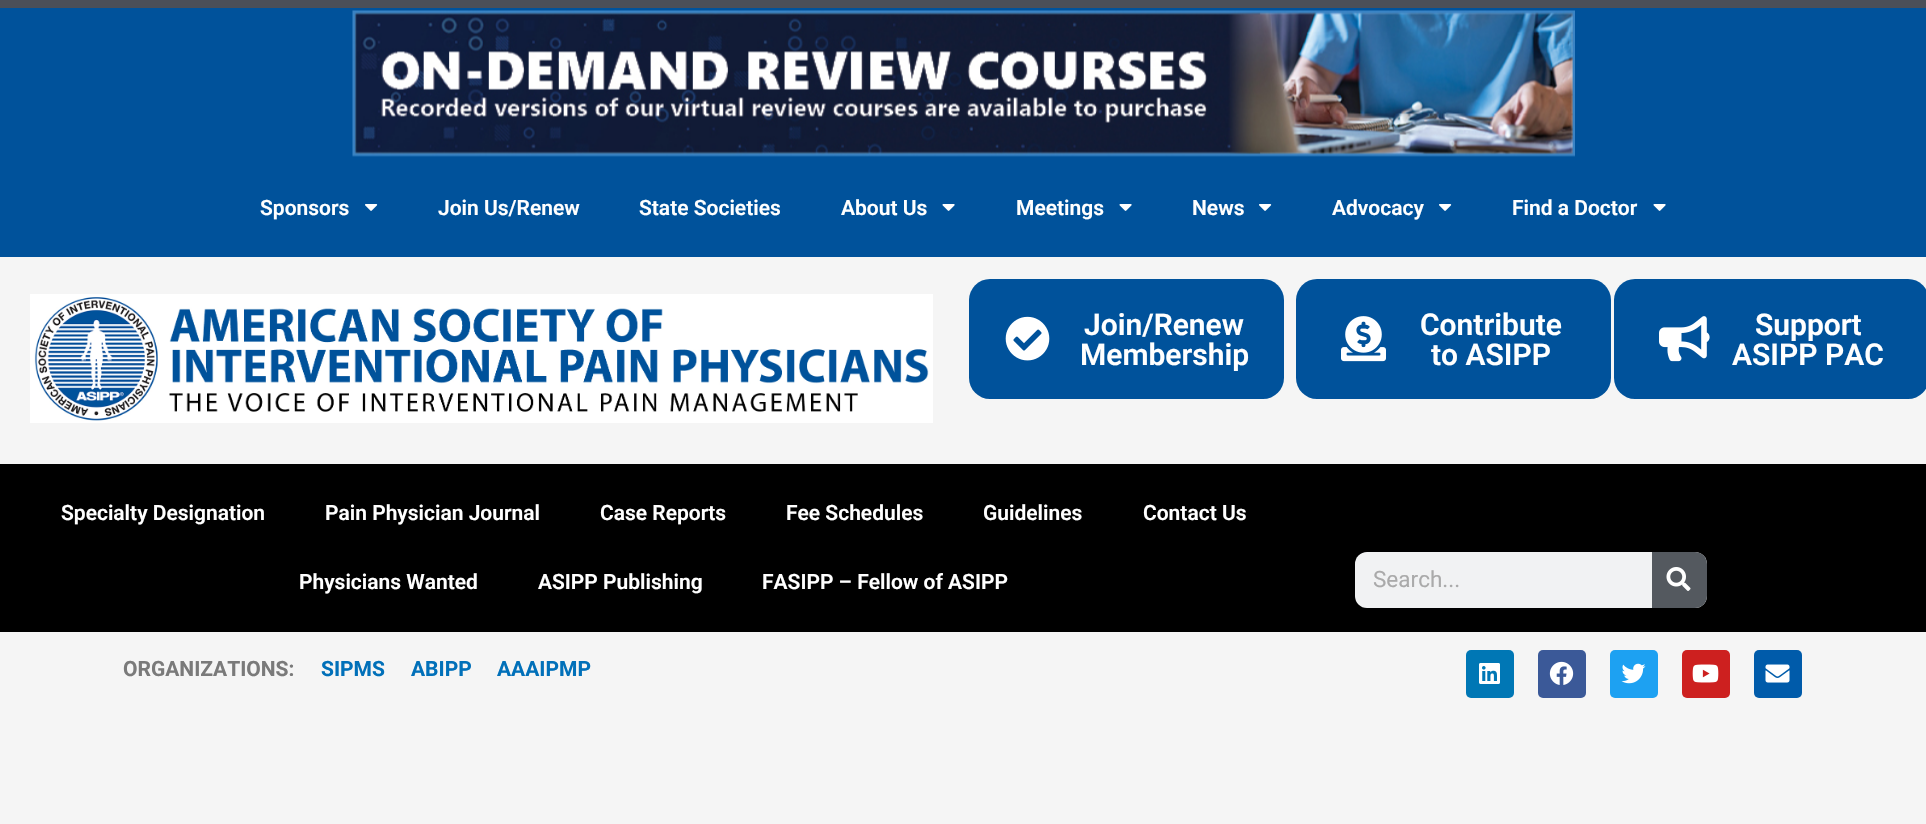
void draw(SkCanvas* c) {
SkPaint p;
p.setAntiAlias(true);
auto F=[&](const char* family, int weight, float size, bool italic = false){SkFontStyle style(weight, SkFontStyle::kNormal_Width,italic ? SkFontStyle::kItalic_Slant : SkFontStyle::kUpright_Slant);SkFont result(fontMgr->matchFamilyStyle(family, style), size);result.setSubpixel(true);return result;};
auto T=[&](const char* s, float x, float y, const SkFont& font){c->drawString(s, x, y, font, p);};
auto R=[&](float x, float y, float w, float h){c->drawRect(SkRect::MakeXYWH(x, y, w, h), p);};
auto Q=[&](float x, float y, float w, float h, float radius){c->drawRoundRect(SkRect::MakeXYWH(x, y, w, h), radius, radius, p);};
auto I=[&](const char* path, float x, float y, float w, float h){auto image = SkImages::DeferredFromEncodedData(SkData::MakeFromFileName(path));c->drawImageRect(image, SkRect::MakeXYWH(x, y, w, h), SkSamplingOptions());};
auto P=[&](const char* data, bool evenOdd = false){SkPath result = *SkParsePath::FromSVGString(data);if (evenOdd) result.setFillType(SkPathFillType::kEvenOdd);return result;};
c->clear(0xfff5f5f5);
p.setColor(0xff00529b);
R(0,8,1926,249);
p.setColor(0xff4b4f58);
R(0,0,1926,8);
I("1.png",352,10,1223,147);
auto f1 = F("Roboto",600,21);
p.setColor(0xffffffff);
T("Sponsors",260,215,f1);
I("2.png",365,204,13,7);
T("Join Us/Renew",438,215,f1);
T("State Societies",639,215,f1);
T("About Us",841,215,f1);
I("3.png",942,204,13,7);
T("Meetings",1016,215,f1);
I("3.png",1119,204,13,7);
T("News",1192,215,f1);
I("2.png",1259,204,13,7);
T("Advocacy",1332,215,f1);
I("2.png",1439,204,13,7);
T("Find a Doctor",1512,215,f1);
I("3.png",1653,204,13,7);
I("4.png",30,294,903,129);
p.setColor(0xff00529b);
Q(969,279,315,120,21);
I("5.png",1005,316,45,45);
auto f2 = F("Roboto",600,30);
p.setColor(0xffffffff);
T("Join/Renew",1084,335,f2);
T("Membership",1080,365,f2);
p.setColor(0xff00529b);
Q(1296,279,315,120,21);
I("6.png",1341,316,45,46);
p.setColor(0xffffffff);
T("Contribute",1420,335,f2);
T("to ASIPP",1431,365,f2);
p.setColor(0xff00529b);
Q(1614,279,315,120,21);
I("7.png",1659,316,51,46);
p.setColor(0xffffffff);
T("Support",1755,335,f2);
T("ASIPP PAC",1732,365,f2);
p.setColor(0xff000000);
R(0,464,1926,168);
p.setColor(0xffffffff);
T("Specialty Designation",61,520,f1);
T("Pain Physician Journal",325,520,f1);
T("Case Reports",600,520,f1);
T("Fee Schedules",786,520,f1);
T("Guidelines",983,520,f1);
T("Contact Us",1143,520,f1);
T("Physicians Wanted",299,589,f1);
T("ASIPP Publishing",538,589,f1);
T("FASIPP – Fellow of ASIPP",762,589,f1);
p.setColor(0xfff1f2f3);
Q(1355,552,352,56,12);
auto f3 = F("Roboto",400,22.5);
p.setColor(0xffaaaaaa);
T("Search...",1373,587,f3);
p.setColor(0xff54595f);
c->drawPath(P("M1652 552h43c6.5 0 12 5.5 12 12v32c0 6.5-5.5 12-12 12h-43z"),p);
I("8.png",1666,567,25,24);
auto f4 = F("Roboto",700,21);
p.setColor(0xff7a7a7a);
T("ORGANIZATIONS:",123,676,f4);
p.setColor(0xff0170b9);
T("SIPMS",321,676,f4);
T("ABIPP",411,676,f4);
T("AAAIPMP",497,676,f4);
p.setColor(0xff0077b5);
Q(1466,650,48,48,5);
I("9.png",1479,663,21,21);
p.setColor(0xff3b5998);
Q(1538,650,48,48,5);
I("10.png",1549,661,25,24);
p.setColor(0xff1da1f2);
Q(1610,650,48,48,5);
I("11.png",1621,663,25,21);
p.setColor(0xffcd201f);
Q(1682,650,48,48,5);
I("12.png",1692,664,27,19);
p.setColor(0xff005baa);
Q(1754,650,48,48,5);
I("13.png",1765,664,25,19);
}
